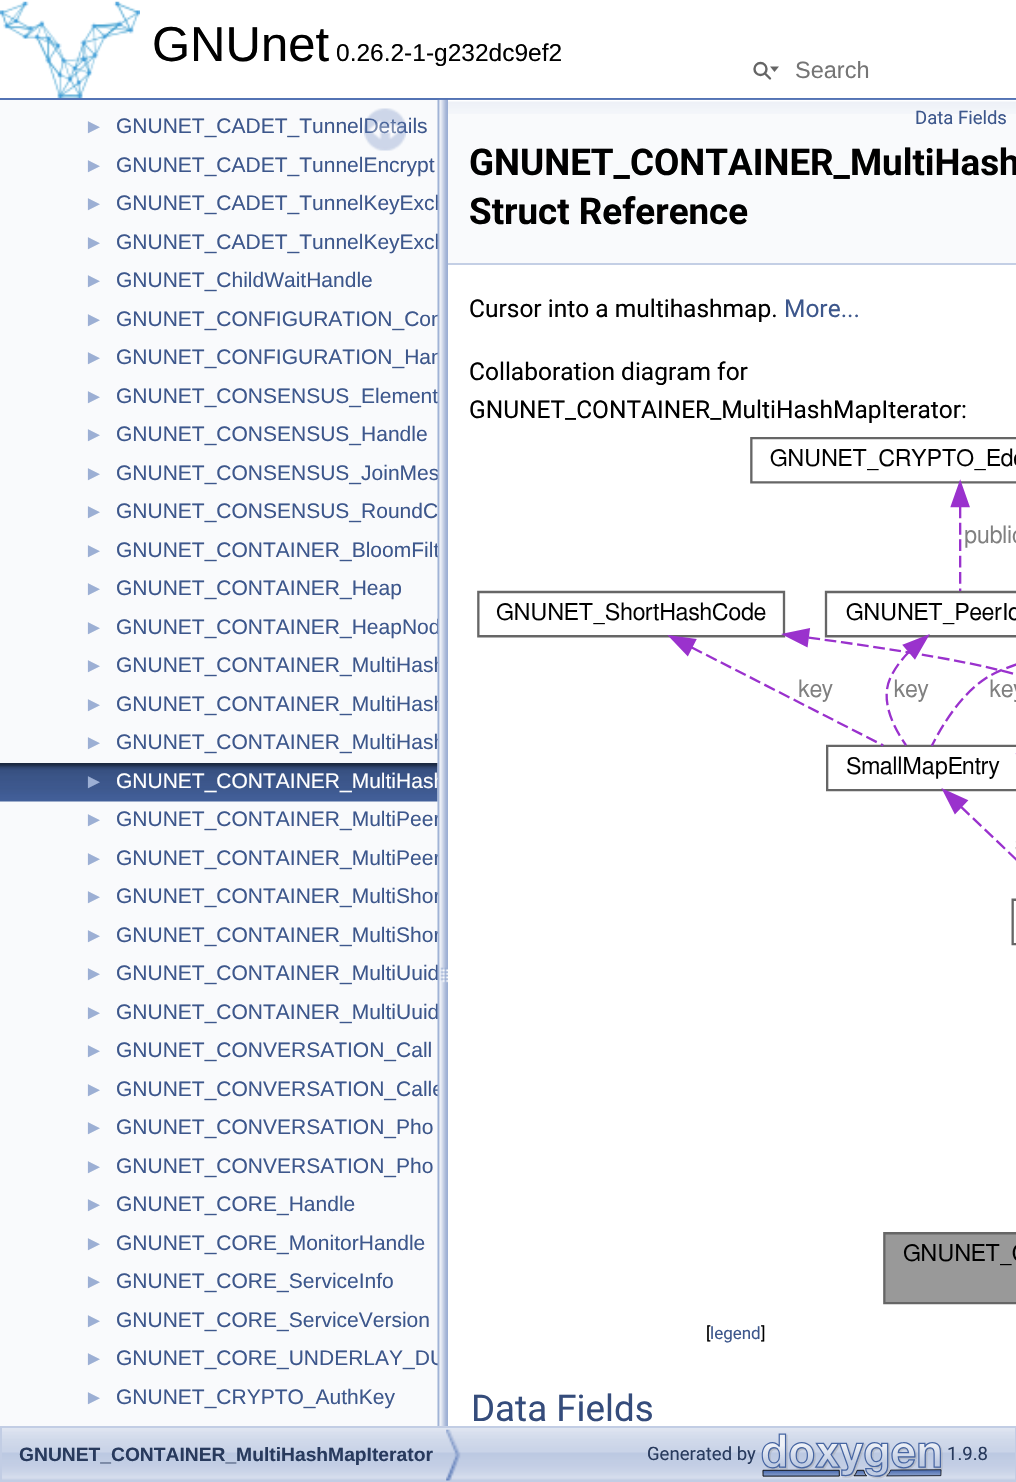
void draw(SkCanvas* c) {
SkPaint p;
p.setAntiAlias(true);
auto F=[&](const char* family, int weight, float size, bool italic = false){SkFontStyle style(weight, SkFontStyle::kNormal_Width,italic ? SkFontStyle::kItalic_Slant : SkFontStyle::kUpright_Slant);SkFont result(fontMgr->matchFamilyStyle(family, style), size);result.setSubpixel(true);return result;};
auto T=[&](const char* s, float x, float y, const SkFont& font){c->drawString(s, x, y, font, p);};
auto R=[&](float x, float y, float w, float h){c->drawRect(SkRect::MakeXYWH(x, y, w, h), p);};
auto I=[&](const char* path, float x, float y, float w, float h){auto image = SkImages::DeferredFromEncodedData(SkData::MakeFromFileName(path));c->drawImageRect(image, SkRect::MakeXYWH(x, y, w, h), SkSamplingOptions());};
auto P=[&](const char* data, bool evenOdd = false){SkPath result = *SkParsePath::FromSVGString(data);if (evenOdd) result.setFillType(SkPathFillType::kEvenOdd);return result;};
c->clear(0xffffffff);
p.setColor(0xff5373b4);
R(0,98,1016,2);
I("1.png",0,1,140,97);
auto f1 = F("Liberation Sans",400,49);
p.setColor(0xff000000);
T("GNUnet",152,61,f1);
auto f2 = F("Liberation Sans",400,24.5);
T("0.26.2-1-g232dc9ef2",336,61,f2);
p.setStroke(true);
p.setStrokeWidth(2.4);
p.setColor(0xff656565);
c->drawCircle(760.5,69,6,p);
p.setStroke(false);
c->drawPath(P("M770 66.5l4.5 5.5l4.5-5.5z"),p);
p.setStroke(true);
p.setStrokeCap(SkPaint::kRound_Cap);
c->drawPath(P("M765 73.5l5 5"),p);
auto f3 = F("Liberation Sans",400,23.5);
p.setStroke(false);
p.setColor(0xff757575);
T("Search",795,78,f3);
p.setColor(0xfff9fafc);
R(0,100,438,1326);
auto f4 = F("Liberation Sans",400,21);
p.setColor(0xff3d578c);
T("GNUNET_CADET_TunnelDetails",116,133,f4);
I("2.png",364,108,42,43);
auto f5 = F("Liberation Sans",400,20);
p.setColor(0xff9cafd4);
T("►",84,133,f5);
T("►",84,172,f5);
p.setColor(0xff3d578c);
T("GNUNET_CADET_TunnelEncrypt",116,172,f4);
p.setColor(0xff9cafd4);
T("►",84,210,f5);
p.setColor(0xff3d578c);
T("GNUNET_CADET_TunnelKeyExch",116,210,f4);
p.setColor(0xff9cafd4);
T("►",84,249,f5);
p.setColor(0xff3d578c);
T("GNUNET_CADET_TunnelKeyExch",116,249,f4);
p.setColor(0xff9cafd4);
T("►",84,287,f5);
p.setColor(0xff3d578c);
T("GNUNET_ChildWaitHandle",116,287,f4);
p.setColor(0xff9cafd4);
T("►",84,326,f5);
p.setColor(0xff3d578c);
T("GNUNET_CONFIGURATION_Con",116,326,f4);
p.setColor(0xff9cafd4);
T("►",84,364,f5);
p.setColor(0xff3d578c);
T("GNUNET_CONFIGURATION_Han",116,364,f4);
p.setColor(0xff9cafd4);
T("►",84,403,f5);
p.setColor(0xff3d578c);
T("GNUNET_CONSENSUS_Element",116,403,f4);
p.setColor(0xff9cafd4);
T("►",84,441,f5);
p.setColor(0xff3d578c);
T("GNUNET_CONSENSUS_Handle",116,441,f4);
p.setColor(0xff9cafd4);
T("►",84,480,f5);
p.setColor(0xff3d578c);
T("GNUNET_CONSENSUS_JoinMes",116,480,f4);
p.setColor(0xff9cafd4);
T("►",84,518,f5);
p.setColor(0xff3d578c);
T("GNUNET_CONSENSUS_RoundC",116,518,f4);
p.setColor(0xff9cafd4);
T("►",84,557,f5);
p.setColor(0xff3d578c);
T("GNUNET_CONTAINER_BloomFilt",116,557,f4);
p.setColor(0xff9cafd4);
T("►",84,595,f5);
p.setColor(0xff3d578c);
T("GNUNET_CONTAINER_Heap",116,595,f4);
p.setColor(0xff9cafd4);
T("►",84,634,f5);
p.setColor(0xff3d578c);
T("GNUNET_CONTAINER_HeapNod",116,634,f4);
p.setColor(0xff9cafd4);
T("►",84,672,f5);
p.setColor(0xff3d578c);
T("GNUNET_CONTAINER_MultiHash",116,672,f4);
p.setColor(0xff9cafd4);
T("►",84,711,f5);
p.setColor(0xff3d578c);
T("GNUNET_CONTAINER_MultiHash",116,711,f4);
p.setColor(0xff9cafd4);
T("►",84,749,f5);
p.setColor(0xff3d578c);
T("GNUNET_CONTAINER_MultiHash",116,749,f4);
I("3.png",0,763,438,39);
p.setColor(0xff9cafd4);
T("►",84,788,f5);
p.setColor(0xffffffff);
T("GNUNET_CONTAINER_MultiHash",116,788,f4);
p.setColor(0xff9cafd4);
T("►",84,826,f5);
p.setColor(0xff3d578c);
T("GNUNET_CONTAINER_MultiPeer",116,826,f4);
p.setColor(0xff9cafd4);
T("►",84,865,f5);
p.setColor(0xff3d578c);
T("GNUNET_CONTAINER_MultiPeer",116,865,f4);
p.setColor(0xff9cafd4);
T("►",84,903,f5);
p.setColor(0xff3d578c);
T("GNUNET_CONTAINER_MultiShor",116,903,f4);
p.setColor(0xff9cafd4);
T("►",84,942,f5);
p.setColor(0xff3d578c);
T("GNUNET_CONTAINER_MultiShor",116,942,f4);
p.setColor(0xff9cafd4);
T("►",84,980,f5);
p.setColor(0xff3d578c);
T("GNUNET_CONTAINER_MultiUuid",116,980,f4);
p.setColor(0xff9cafd4);
T("►",84,1019,f5);
p.setColor(0xff3d578c);
T("GNUNET_CONTAINER_MultiUuid",116,1019,f4);
p.setColor(0xff9cafd4);
T("►",84,1057,f5);
p.setColor(0xff3d578c);
T("GNUNET_CONVERSATION_Call",116,1057,f4);
p.setColor(0xff9cafd4);
T("►",84,1096,f5);
p.setColor(0xff3d578c);
T("GNUNET_CONVERSATION_Calle",116,1096,f4);
p.setColor(0xff9cafd4);
T("►",84,1134,f5);
p.setColor(0xff3d578c);
T("GNUNET_CONVERSATION_Pho",116,1134,f4);
p.setColor(0xff9cafd4);
T("►",84,1173,f5);
p.setColor(0xff3d578c);
T("GNUNET_CONVERSATION_Pho",116,1173,f4);
p.setColor(0xff9cafd4);
T("►",84,1211,f5);
p.setColor(0xff3d578c);
T("GNUNET_CORE_Handle",116,1211,f4);
p.setColor(0xff9cafd4);
T("►",84,1250,f5);
p.setColor(0xff3d578c);
T("GNUNET_CORE_MonitorHandle",116,1250,f4);
p.setColor(0xff9cafd4);
T("►",84,1288,f5);
p.setColor(0xff3d578c);
T("GNUNET_CORE_ServiceInfo",116,1288,f4);
p.setColor(0xff9cafd4);
T("►",84,1327,f5);
p.setColor(0xff3d578c);
T("GNUNET_CORE_ServiceVersion",116,1327,f4);
p.setColor(0xff9cafd4);
T("►",84,1365,f5);
p.setColor(0xff3d578c);
T("GNUNET_CORE_UNDERLAY_DU",116,1365,f4);
p.setColor(0xff9cafd4);
T("►",84,1404,f5);
p.setColor(0xff3d578c);
T("GNUNET_CRYPTO_AuthKey",116,1404,f4);
I("4.png",437,99,11,1327);
p.setColor(0xfff9fafc);
R(448,114,568,149);
I("5.png",448,99,568,15);
p.setColor(0xffc4cfe5);
R(448,263,568,2);
auto f6 = F("Roboto",400,18.5);
p.setColor(0xff3d578c);
T("Data Fields",915,124,f6);
auto f7 = F("Roboto",700,36.75);
p.setColor(0xff000000);
T("GNUNET_CONTAINER_MultiHash",469,175,f7);
T("Struct Reference",469,224,f7);
auto f8 = F("Roboto",400,24.5);
T("Cursor into a multihashmap.",469,317,f8);
p.setColor(0xff3d578c);
T("More...",784,317,f8);
p.setColor(0xff000000);
T("Collaboration diagram for",469,380,f8);
T("GNUNET_CONTAINER_MultiHashMapIterator:",469,418,f8);
I("6.png",477,437,539,868);
auto f9 = F("Roboto",400,17);
T("[",706,1339,f9);
p.setColor(0xff3d578c);
T("legend",710,1339,f9);
p.setColor(0xff000000);
T("]",761,1339,f9);
auto f10 = F("Roboto",400,36.75);
p.setColor(0xff354c7b);
T("Data Fields",471,1421,f10);
I("7.png",2,1428,1013,52);
p.setStroke(true);
p.setStrokeWidth(2);
p.setStrokeCap(SkPaint::kButt_Cap);
p.setColor(0xffc2cde4);
c->drawRect(SkRect::MakeXYWH(1,1427,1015,54),p);
I("8.png",446,1429,15,52);
auto f11 = F("Liberation Sans",700,19.25);
p.setStroke(false);
p.setColor(0xff283a5d);
T("GNUNET_CONTAINER_MultiHashMapIterator",19,1461,f11);
T("Generated by",647,1460,f6);
I("9.png",761,1433,182,46);
T("1.9.8",947,1460,f6);
}
